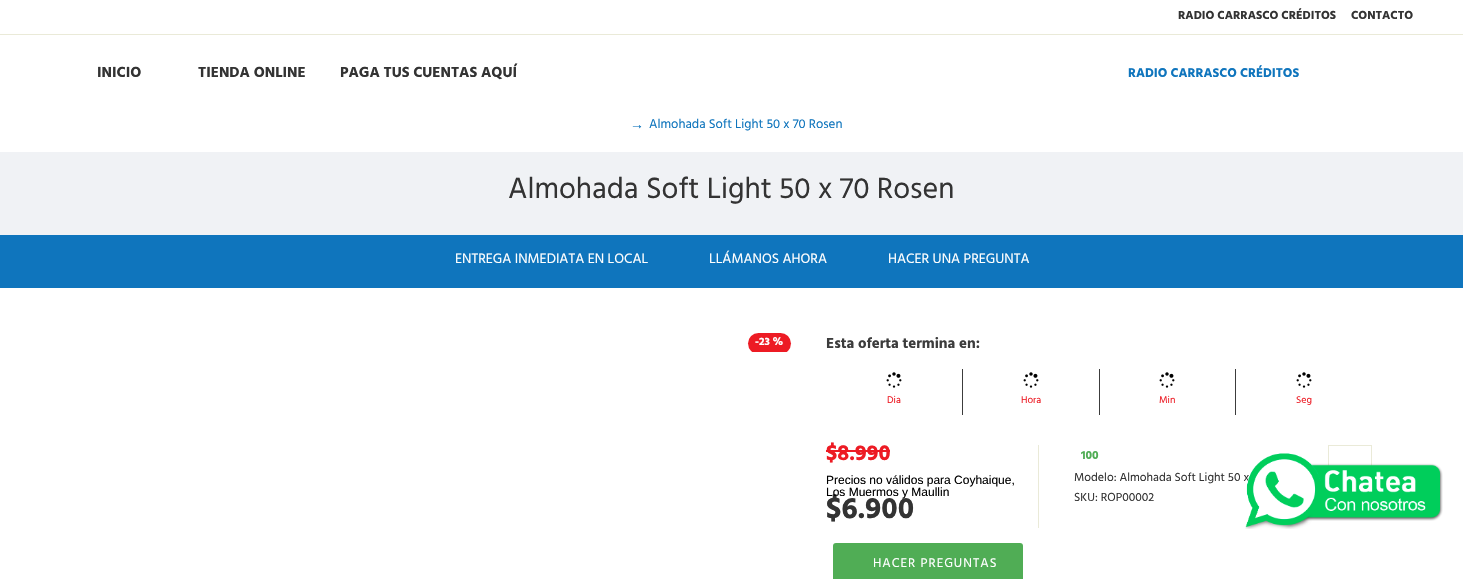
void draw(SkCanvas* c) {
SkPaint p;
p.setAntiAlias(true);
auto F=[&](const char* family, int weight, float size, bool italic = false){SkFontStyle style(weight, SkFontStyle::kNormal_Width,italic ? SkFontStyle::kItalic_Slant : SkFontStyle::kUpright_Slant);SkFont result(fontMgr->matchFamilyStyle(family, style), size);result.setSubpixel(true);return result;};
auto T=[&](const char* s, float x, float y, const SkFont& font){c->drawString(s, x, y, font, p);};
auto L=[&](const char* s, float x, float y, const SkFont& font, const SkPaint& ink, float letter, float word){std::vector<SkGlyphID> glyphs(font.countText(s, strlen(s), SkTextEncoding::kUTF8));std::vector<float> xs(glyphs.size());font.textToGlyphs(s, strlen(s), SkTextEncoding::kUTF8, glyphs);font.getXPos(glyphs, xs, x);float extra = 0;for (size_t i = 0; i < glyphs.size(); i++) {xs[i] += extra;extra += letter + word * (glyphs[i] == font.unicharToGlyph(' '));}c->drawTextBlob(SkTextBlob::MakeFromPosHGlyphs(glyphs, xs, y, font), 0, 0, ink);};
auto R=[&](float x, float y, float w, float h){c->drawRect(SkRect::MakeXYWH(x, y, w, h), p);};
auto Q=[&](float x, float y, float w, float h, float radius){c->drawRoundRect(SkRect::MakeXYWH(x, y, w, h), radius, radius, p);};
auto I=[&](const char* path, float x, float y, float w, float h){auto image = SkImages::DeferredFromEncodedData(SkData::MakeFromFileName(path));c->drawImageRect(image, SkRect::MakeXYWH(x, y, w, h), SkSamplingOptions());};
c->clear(0xffffffff);
auto f1 = F("Hind Guntur",700,12);
p.setColor(0xff333333);
T("RADIO CARRASCO CRÉDITOS",1178,19,f1);
T("CONTACTO",1351,19,f1);
auto f2 = F("Hind Guntur",700,15);
T("INICIO",97,77,f2);
T("TIENDA ONLINE",198,77,f2);
T("PAGA TUS CUENTAS AQUÍ",340,77,f2);
auto f3 = F("Hind Guntur",700,13);
p.setColor(0xff0f75bd);
T("RADIO CARRASCO CRÉDITOS",1128,77,f3);
p.setColor(0xffeaead8);
R(0,34,1463,1);
auto f4 = F("Liberation Serif",400,14);
p.setColor(0xff0f75bd);
T("→",630,129,f4);
auto f5 = F("Hind Guntur",400,13);
T("Almohada Soft Light 50 x 70 Rosen",649,128,f5);
p.setColor(0xfff0f2f5);
R(0,152,1463,83);
auto f6 = F("Hind Guntur",400,30);
p.setColor(0xff333333);
T("Almohada Soft Light 50 x 70 Rosen",508,198,f6);
p.setColor(0xff0f75bd);
R(0,235,1463,53);
auto f7 = F("Hind Guntur",400,14);
p.setColor(0xffffffff);
T("ENTREGA INMEDIATA EN LOCAL",455,263,f7);
T("LLÁMANOS AHORA",709,263,f7);
T("HACER UNA PREGUNTA",888,263,f7);
c->save();
c->clipRect(SkRect::MakeXYWH(180,328,616,24));
p.setColor(0xffed1b24);
Q(748,333,43,21,10.5);
c->restore();
auto f8 = F("Hind Guntur",700,11);
p.setColor(0xffffffff);
T("-23 %",755,345,f8);
p.setColor(0xff3c3c3c);
T("Esta oferta termina en:",826,348,f2);
I("1.png",886,372,16,16);
auto f9 = F("Hind Guntur",400,10);
p.setColor(0xffed1b24);
T("Dia",887,403,f9);
p.setColor(0xff3c3c3c);
R(962,369,1,46);
I("1.png",1023,372,16,16);
p.setColor(0xffed1b24);
T("Hora",1021,403,f9);
p.setColor(0xff3c3c3c);
R(1099,369,1,46);
I("1.png",1159,372,16,16);
p.setColor(0xffed1b24);
T("Min",1159,403,f9);
p.setColor(0xff3c3c3c);
R(1235,369,1,46);
I("1.png",1296,372,16,16);
p.setColor(0xffed1b24);
T("Seg",1296,403,f9);
auto f10 = F("Hind Guntur",700,22);
T("$8.990",826,460,f10);
R(826,450,64,2);
auto f11 = F("Liberation Sans",400,12);
p.setColor(0xff000000);
T("Precios no válidos para Coyhaique,",826,484,f11);
auto f12 = F("Hind Guntur",700,30);
p.setColor(0xff333333);
T("$6.900",826,518,f12);
p.setColor(0xff000000);
T("Los Muermos y Maullin",826,496,f11);
p.setColor(0xffeaead8);
R(1038,445,1,83);
p.setColor(0xff50ad55);
T("100",1081,459,f1);
auto f13 = F("Hind Guntur",400,12);
p.setColor(0xff333333);
T("Modelo: Almohada Soft Light 50 x",1074,481,f13);
T("SKU: ROP00002",1074,501,f13);
p.setStroke(true);
p.setStrokeWidth(1);
p.setColor(0xffeaead8);
c->drawRect(SkRect::MakeXYWH(1328.5,445.5,43,68),p);
p.setStroke(false);
p.setColor(0xff50ad55);
Q(833,543,190,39,3);
p.setColor(0xffffffff);
L("HACER PREGUNTAS",873,567,f5,p,1,0);
I("2.png",1245,453,198,76);
}
